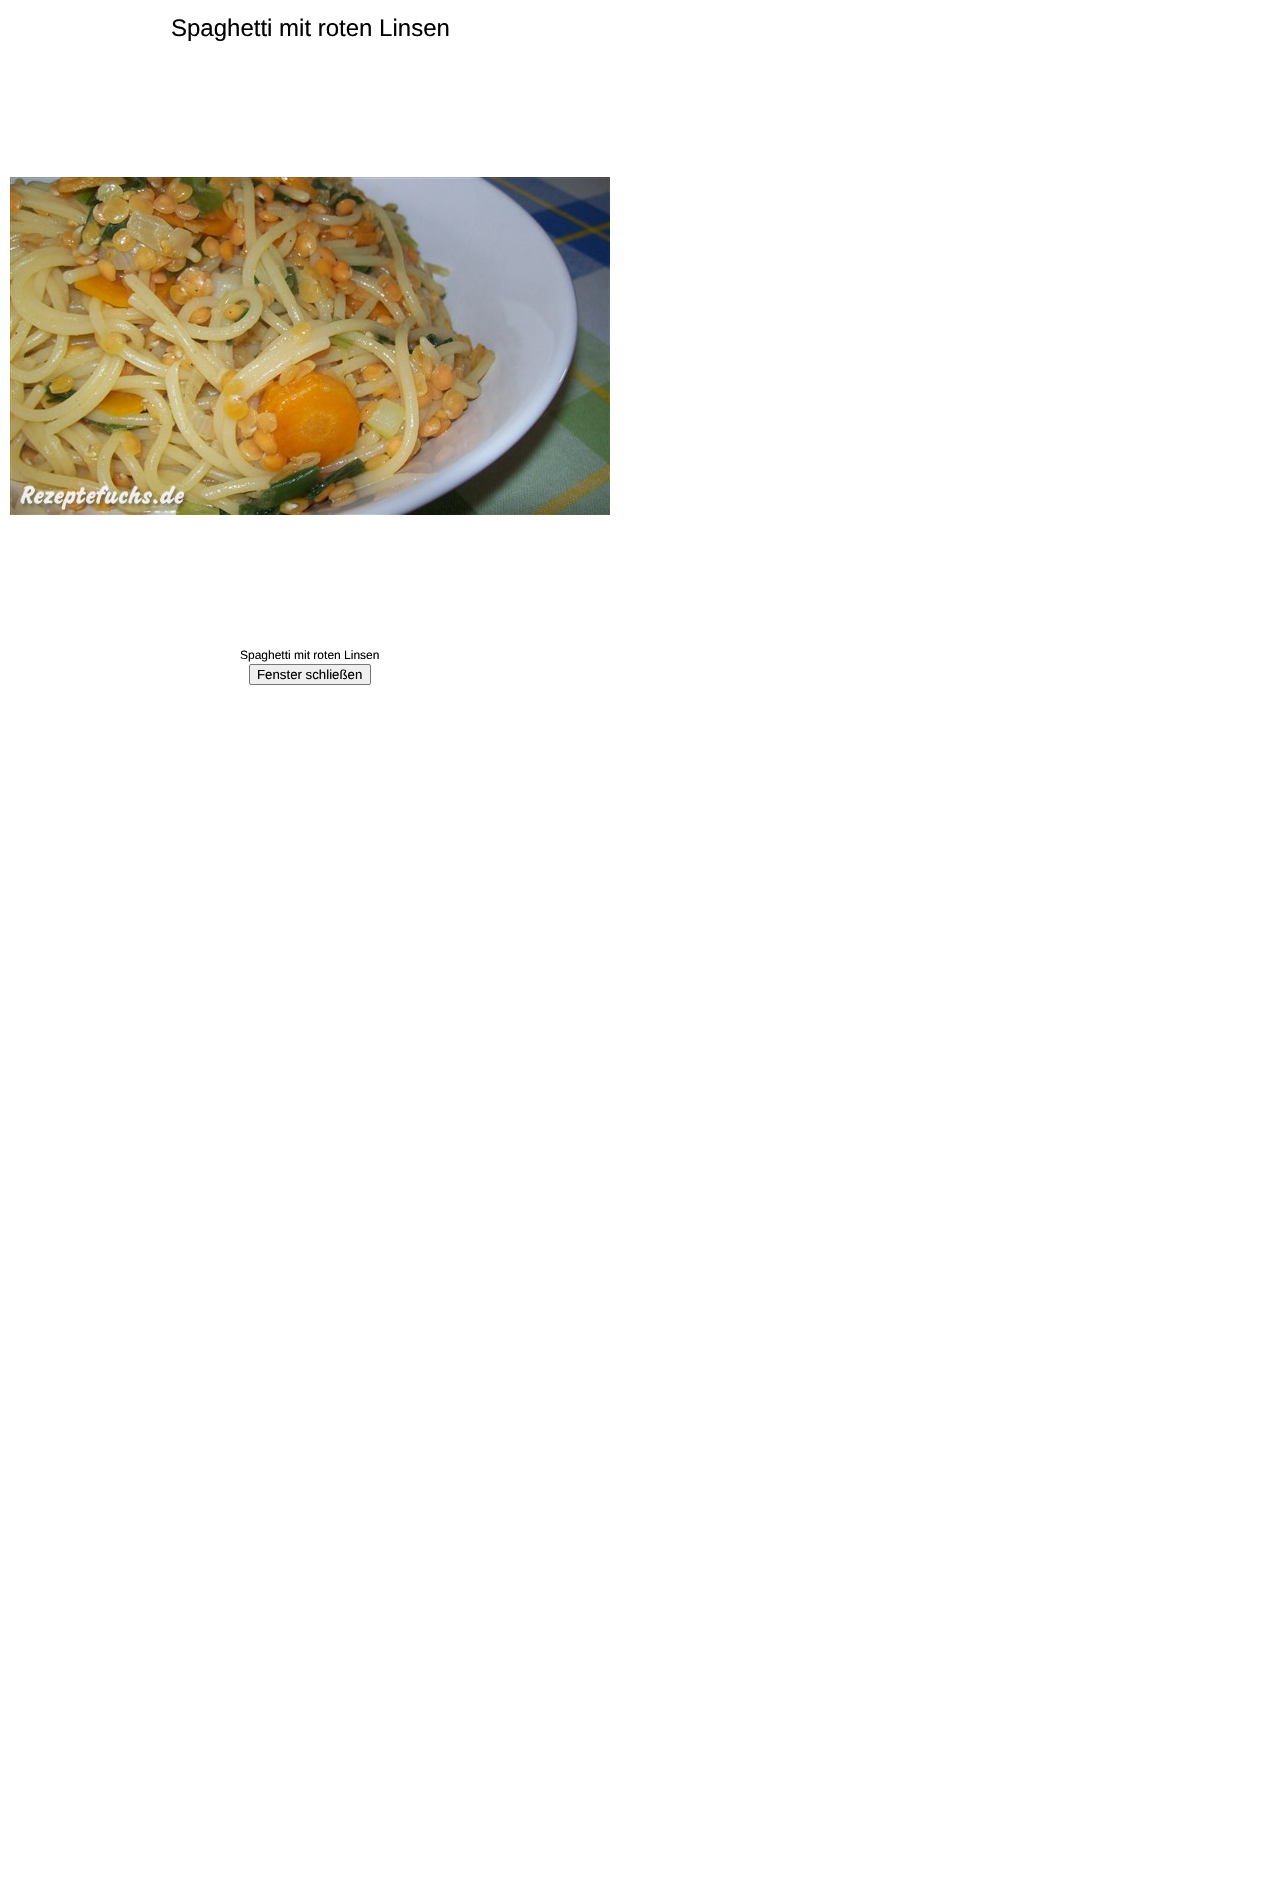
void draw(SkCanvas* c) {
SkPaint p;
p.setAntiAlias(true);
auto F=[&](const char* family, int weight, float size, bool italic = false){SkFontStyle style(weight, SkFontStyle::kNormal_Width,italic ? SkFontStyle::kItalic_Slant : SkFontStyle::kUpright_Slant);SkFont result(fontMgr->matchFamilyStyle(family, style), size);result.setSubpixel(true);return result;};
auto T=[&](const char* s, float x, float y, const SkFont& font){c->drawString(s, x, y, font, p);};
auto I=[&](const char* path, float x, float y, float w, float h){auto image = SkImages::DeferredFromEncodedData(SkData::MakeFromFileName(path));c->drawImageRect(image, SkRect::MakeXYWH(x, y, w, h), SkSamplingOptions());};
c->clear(0xffffffff);
auto f1 = F("Liberation Sans",400,24);
p.setColor(0xff000000);
T("Spaghetti mit roten Linsen",171,36,f1);
I("1.png",10,177,600,338);
auto f2 = F("Liberation Sans",400,12);
T("Spaghetti mit roten Linsen",240,659,f2);
p.setColor(0xffefefef);
c->drawRoundRect(SkRect::MakeXYWH(249.5,664.5,121,20),1.5,1.5,p);
p.setStroke(true);
p.setStrokeWidth(1);
p.setColor(0xff767676);
c->drawRoundRect(SkRect::MakeXYWH(249.5,664.5,121,20),1.5,1.5,p);
auto f3 = F("Liberation Sans",400,13.25);
p.setStroke(false);
p.setColor(0xff000000);
T("Fenster schließen",257,679,f3);
}
